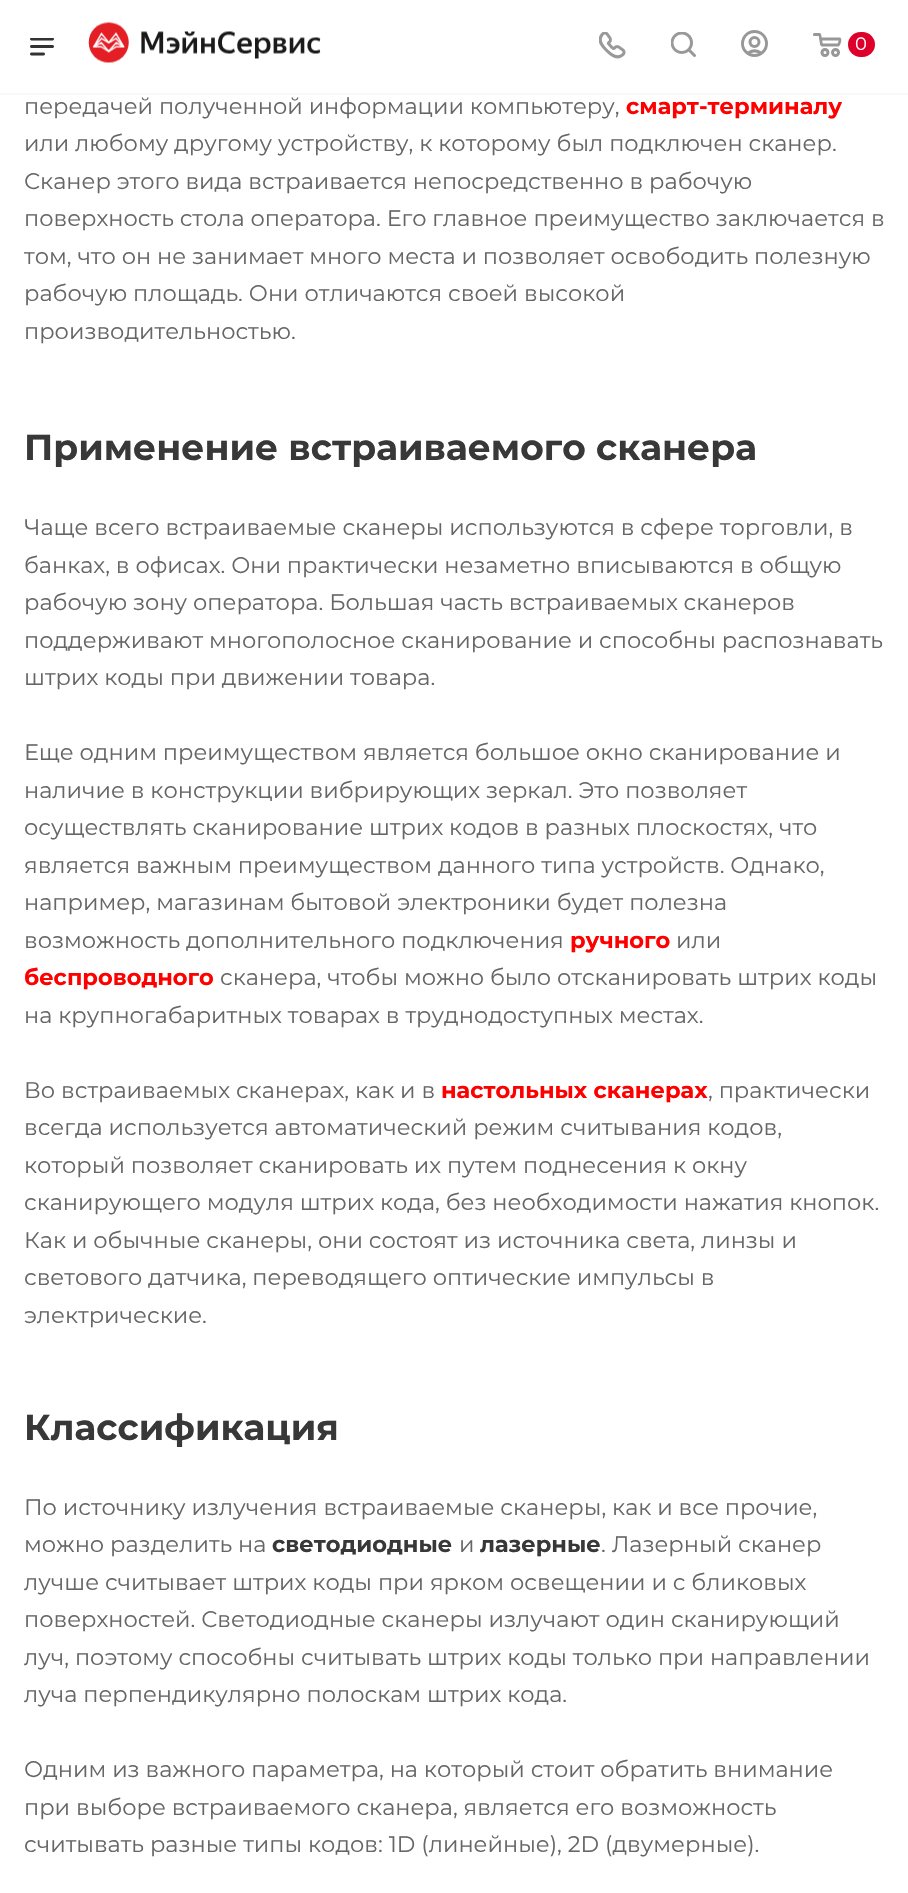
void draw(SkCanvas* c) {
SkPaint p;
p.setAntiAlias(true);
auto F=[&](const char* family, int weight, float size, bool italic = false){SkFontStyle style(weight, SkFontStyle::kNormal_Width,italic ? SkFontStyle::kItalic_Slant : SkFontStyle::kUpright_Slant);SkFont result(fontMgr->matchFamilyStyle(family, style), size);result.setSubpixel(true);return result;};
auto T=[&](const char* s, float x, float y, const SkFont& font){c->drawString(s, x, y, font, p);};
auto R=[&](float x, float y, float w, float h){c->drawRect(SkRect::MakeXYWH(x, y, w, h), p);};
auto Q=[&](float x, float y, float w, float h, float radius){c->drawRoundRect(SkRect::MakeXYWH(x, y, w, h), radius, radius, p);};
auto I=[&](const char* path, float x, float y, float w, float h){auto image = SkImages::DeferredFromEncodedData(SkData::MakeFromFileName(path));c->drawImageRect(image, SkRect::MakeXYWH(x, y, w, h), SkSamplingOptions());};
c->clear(0xffffffff);
p.setColor(0xfff8f8f8);
R(0,93,908,2);
I("1.png",30,38,24,18);
I("2.png",88,22,233,41);
I("3.png",599,32,27,27);
I("4.png",671,32,25,25);
I("5.png",741,30,27,27);
I("6.png",813,33,29,24);
p.setColor(0xffde002b);
Q(848,32,27,25,12.5);
auto f1 = F("Montserrat",400,18);
p.setColor(0xffffffff);
T("0",855,50,f1);
auto f2 = F("Montserrat",400,22.5);
p.setColor(0xff666666);
T("передачей полученной информации компьютеру,",24,114,f2);
auto f3 = F("Montserrat",700,22.5);
p.setColor(0xffff0000);
T("смарт-терминалу",626,114,f3);
p.setColor(0xff666666);
T("или любому другому устройству, к которому был подключен сканер.",24,151,f2);
T("Сканер этого вида встраивается непосредственно в рабочую",24,189,f2);
T("поверхность стола оператора. Его главное преимущество заключается в",24,226,f2);
T("том, что он не занимает много места и позволяет освободить полезную",24,264,f2);
T("рабочую площадь. Они отличаются своей высокой",24,301,f2);
T("производительностью.",24,339,f2);
auto f4 = F("Montserrat",700,36);
p.setColor(0xff383838);
T("Применение встраиваемого сканера",24,460,f4);
p.setColor(0xff666666);
T("Чаще всего встраиваемые сканеры используются в сфере торговли, в",24,535,f2);
T("банках, в офисах. Они практически незаметно вписываются в общую",24,573,f2);
T("рабочую зону оператора. Большая часть встраиваемых сканеров",24,610,f2);
T("поддерживают многополосное сканирование и способны распознавать",24,648,f2);
T("штрих коды при движении товара.",24,685,f2);
T("Еще одним преимуществом является большое окно сканирование и",24,760,f2);
T("наличие в конструкции вибрирующих зеркал. Это позволяет",24,798,f2);
T("осуществлять сканирование штрих кодов в разных плоскостях, что",24,835,f2);
T("является важным преимуществом данного типа устройств. Однако,",24,873,f2);
T("например, магазинам бытовой электроники будет полезна",24,910,f2);
T("возможность дополнительного подключения",24,948,f2);
p.setColor(0xffff0000);
T("ручного",570,948,f3);
p.setColor(0xff666666);
T("или",676,948,f2);
p.setColor(0xffff0000);
T("беспроводного",24,985,f3);
p.setColor(0xff666666);
T("сканера, чтобы можно было отсканировать штрих коды",220,985,f2);
T("на крупногабаритных товарах в труднодоступных местах.",24,1023,f2);
T("Во встраиваемых сканерах, как и в",24,1098,f2);
p.setColor(0xffff0000);
T("настольных сканерах",441,1098,f3);
p.setColor(0xff666666);
T(", практически",708,1098,f2);
T("всегда используется автоматический режим считывания кодов,",24,1135,f2);
T("который позволяет сканировать их путем поднесения к окну",24,1173,f2);
T("сканирующего модуля штрих кода, без необходимости нажатия кнопок.",24,1210,f2);
T("Как и обычные сканеры, они состоят из источника света, линзы и",24,1248,f2);
T("светового датчика, переводящего оптические импульсы в",24,1285,f2);
T("электрические.",24,1323,f2);
p.setColor(0xff383838);
T("Классификация",24,1440,f4);
p.setColor(0xff666666);
T("По источнику излучения встраиваемые сканеры, как и все прочие,",24,1515,f2);
T("можно разделить на",24,1552,f2);
p.setColor(0xff383838);
T("светодиодные",272,1552,f3);
p.setColor(0xff666666);
T("и",459,1552,f2);
p.setColor(0xff383838);
T("лазерные",480,1552,f3);
p.setColor(0xff666666);
T(". Лазерный сканер",601,1552,f2);
T("лучше считывает штрих коды при ярком освещении и с бликовых",24,1590,f2);
T("поверхностей. Светодиодные сканеры излучают один сканирующий",24,1627,f2);
T("луч, поэтому способны считывать штрих коды только при направлении",24,1665,f2);
T("луча перпендикулярно полоскам штрих кода.",24,1702,f2);
T("Одним из важного параметра, на который стоит обратить внимание",24,1777,f2);
T("при выборе встраиваемого сканера, является его возможность",24,1815,f2);
T("считывать разные типы кодов: 1D (линейные), 2D (двумерные).",24,1852,f2);
}
